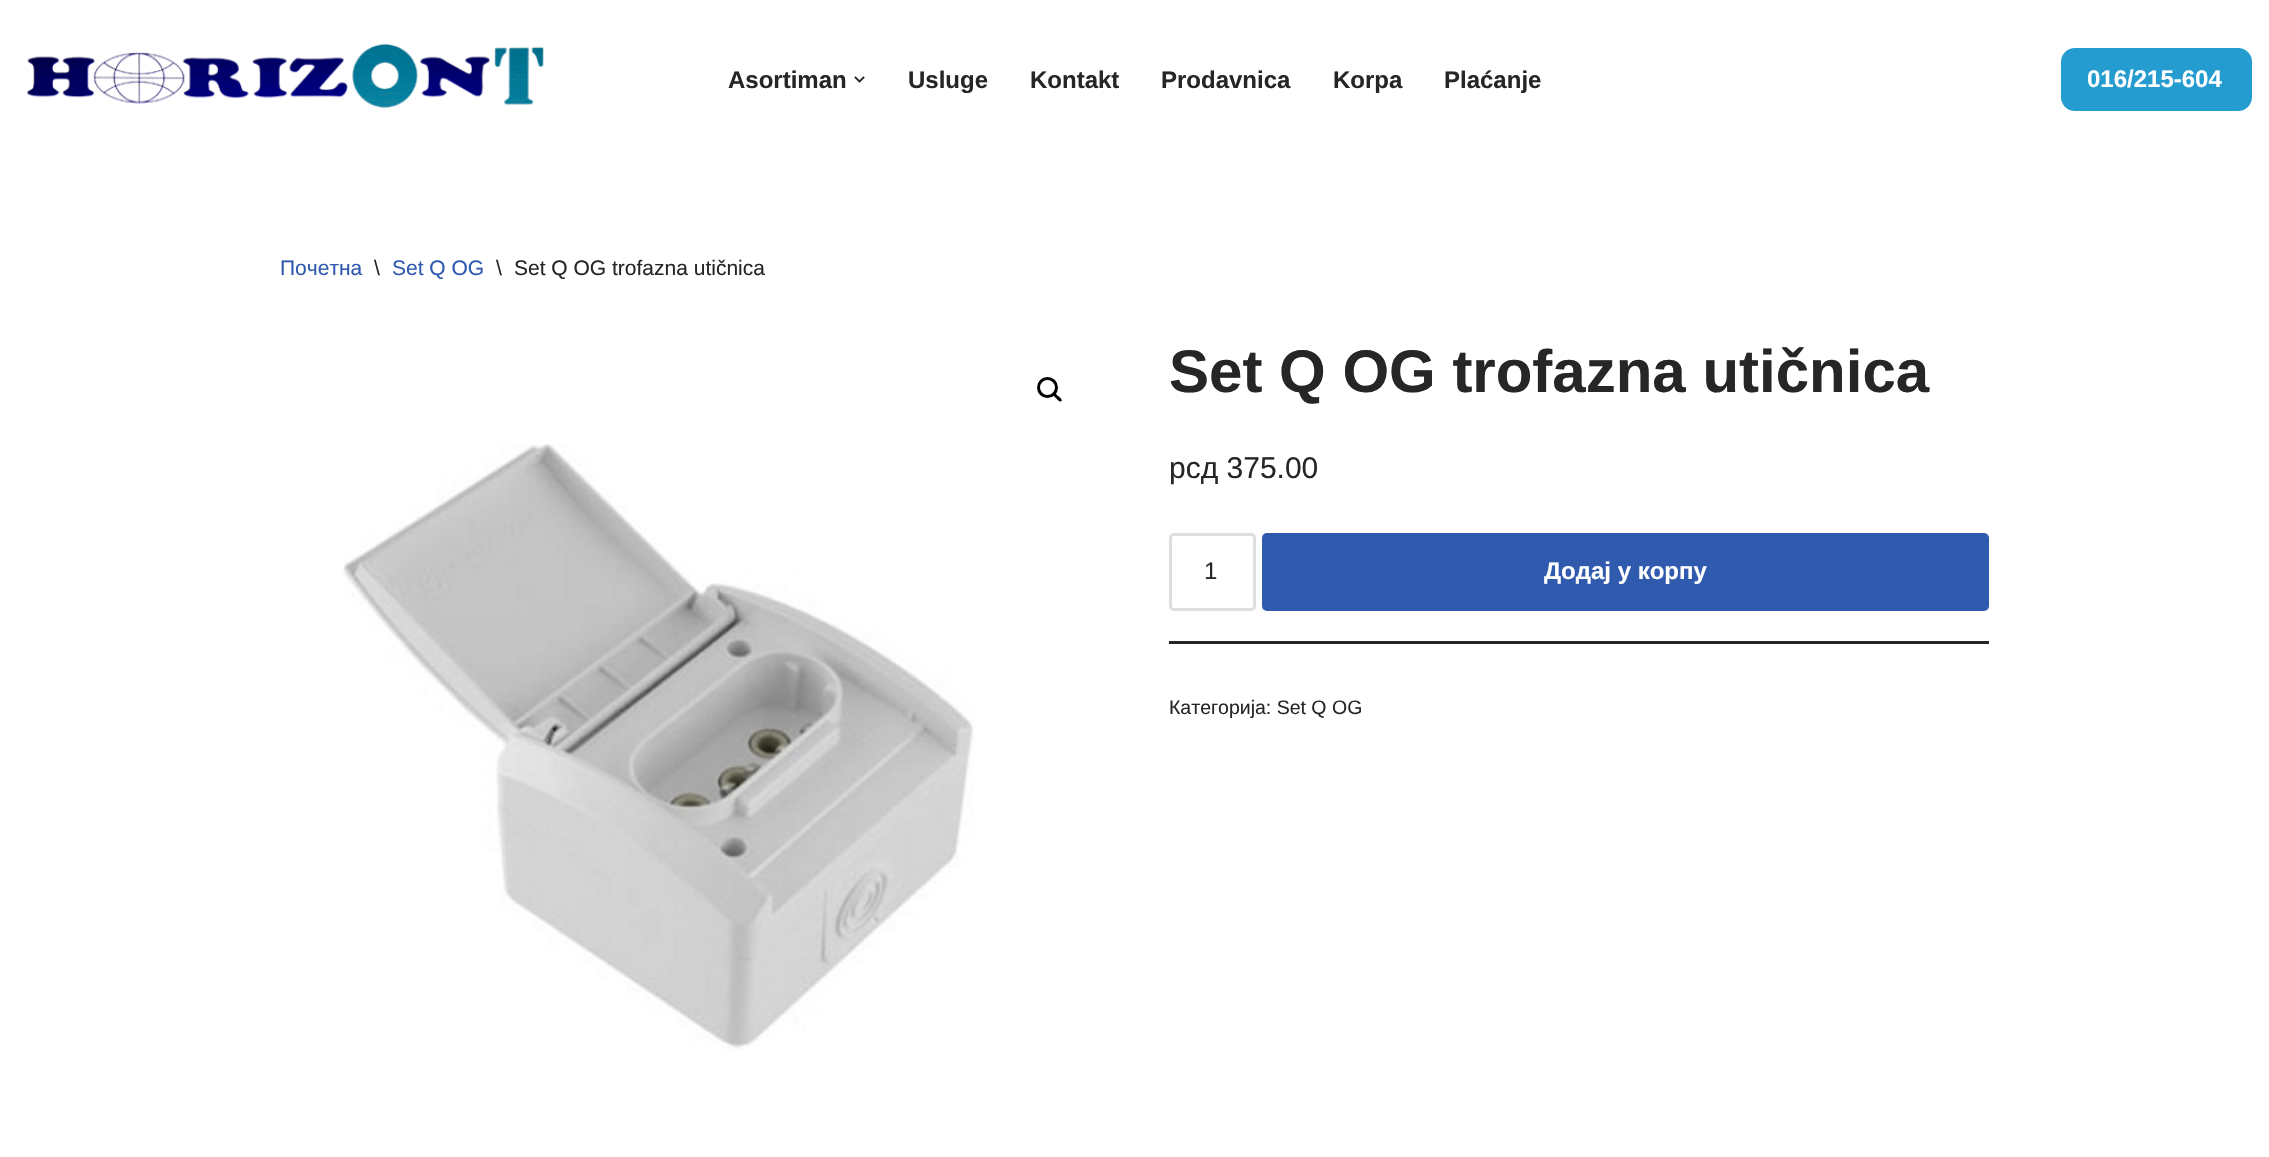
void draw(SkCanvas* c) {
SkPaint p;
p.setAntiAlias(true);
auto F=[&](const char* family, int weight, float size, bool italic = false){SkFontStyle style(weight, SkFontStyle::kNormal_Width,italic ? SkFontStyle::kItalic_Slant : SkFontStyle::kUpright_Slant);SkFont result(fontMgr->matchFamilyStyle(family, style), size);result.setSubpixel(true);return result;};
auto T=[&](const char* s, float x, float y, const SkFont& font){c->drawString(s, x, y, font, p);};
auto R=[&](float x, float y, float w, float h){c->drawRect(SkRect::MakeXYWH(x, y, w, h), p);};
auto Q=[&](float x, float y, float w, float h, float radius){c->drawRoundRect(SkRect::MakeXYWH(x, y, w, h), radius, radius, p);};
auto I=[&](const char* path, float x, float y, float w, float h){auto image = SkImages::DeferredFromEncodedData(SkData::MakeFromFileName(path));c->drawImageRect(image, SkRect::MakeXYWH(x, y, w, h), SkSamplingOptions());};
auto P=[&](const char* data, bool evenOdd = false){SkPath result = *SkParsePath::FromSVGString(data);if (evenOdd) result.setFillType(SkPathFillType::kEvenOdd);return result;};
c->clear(0xffffffff);
I("1.png",26,43,518,65);
auto f1 = F("Liberation Sans",700,24);
p.setColor(0xff272626);
T("Asortiman",728,88,f1);
I("2.png",854,76,11,7);
T("Usluge",908,88,f1);
T("Kontakt",1030,88,f1);
T("Prodavnica",1161,88,f1);
T("Korpa",1333,88,f1);
T("Plaćanje",1444,88,f1);
p.setColor(0xff249cd0);
Q(2061,48,191,63,14);
p.setColor(0xffffffff);
T("016/215-604",2087,87,f1);
auto f2 = F("Liberation Sans",400,21);
p.setColor(0xff2f5aae);
T("Почетна",280,275,f2);
p.setColor(0xff272626);
T("\\",374,275,f2);
p.setColor(0xff2f5aae);
T("Set Q OG",392,275,f2);
p.setColor(0xff272626);
T("\\",496,275,f2);
T("Set Q OG trofazna utičnica",514,275,f2);
p.setStroke(true);
p.setStrokeWidth(3);
p.setColor(0xff000000);
c->drawCircle(1047.5,387.5,9,p);
p.setStroke(false);
c->drawPath(P("M1053 392.5c1.5-1.5 4 2.5 5 3.5c1 .5 5 3.5 3.5 5c-2 2-4.5-2-5.5-3c-1-1-5-3.5-3-5.5z"),p);
I("3.png",343,444,631,606);
auto f3 = F("Liberation Sans",700,60);
p.setColor(0xff272626);
T("Set Q OG trofazna utičnica",1169,392,f3);
auto f4 = F("Liberation Sans",400,30);
T("рсд 375.00",1169,478,f4);
R(1169,641,820,3);
p.setStroke(true);
p.setColor(0xffdddddd);
c->drawRoundRect(SkRect::MakeXYWH(1170.5,534.5,84,75),3.5,3.5,p);
auto f5 = F("Liberation Sans",400,24);
p.setStroke(false);
p.setColor(0xff272626);
T("1",1204,579,f5);
p.setColor(0xff2f5aae);
Q(1262,533,727,78,5);
p.setColor(0xffffffff);
T("Додај у корпу",1544,579,f1);
auto f6 = F("Liberation Sans",400,19.5);
p.setColor(0xff272626);
T("Категорија: Set Q OG",1169,714,f6);
}
